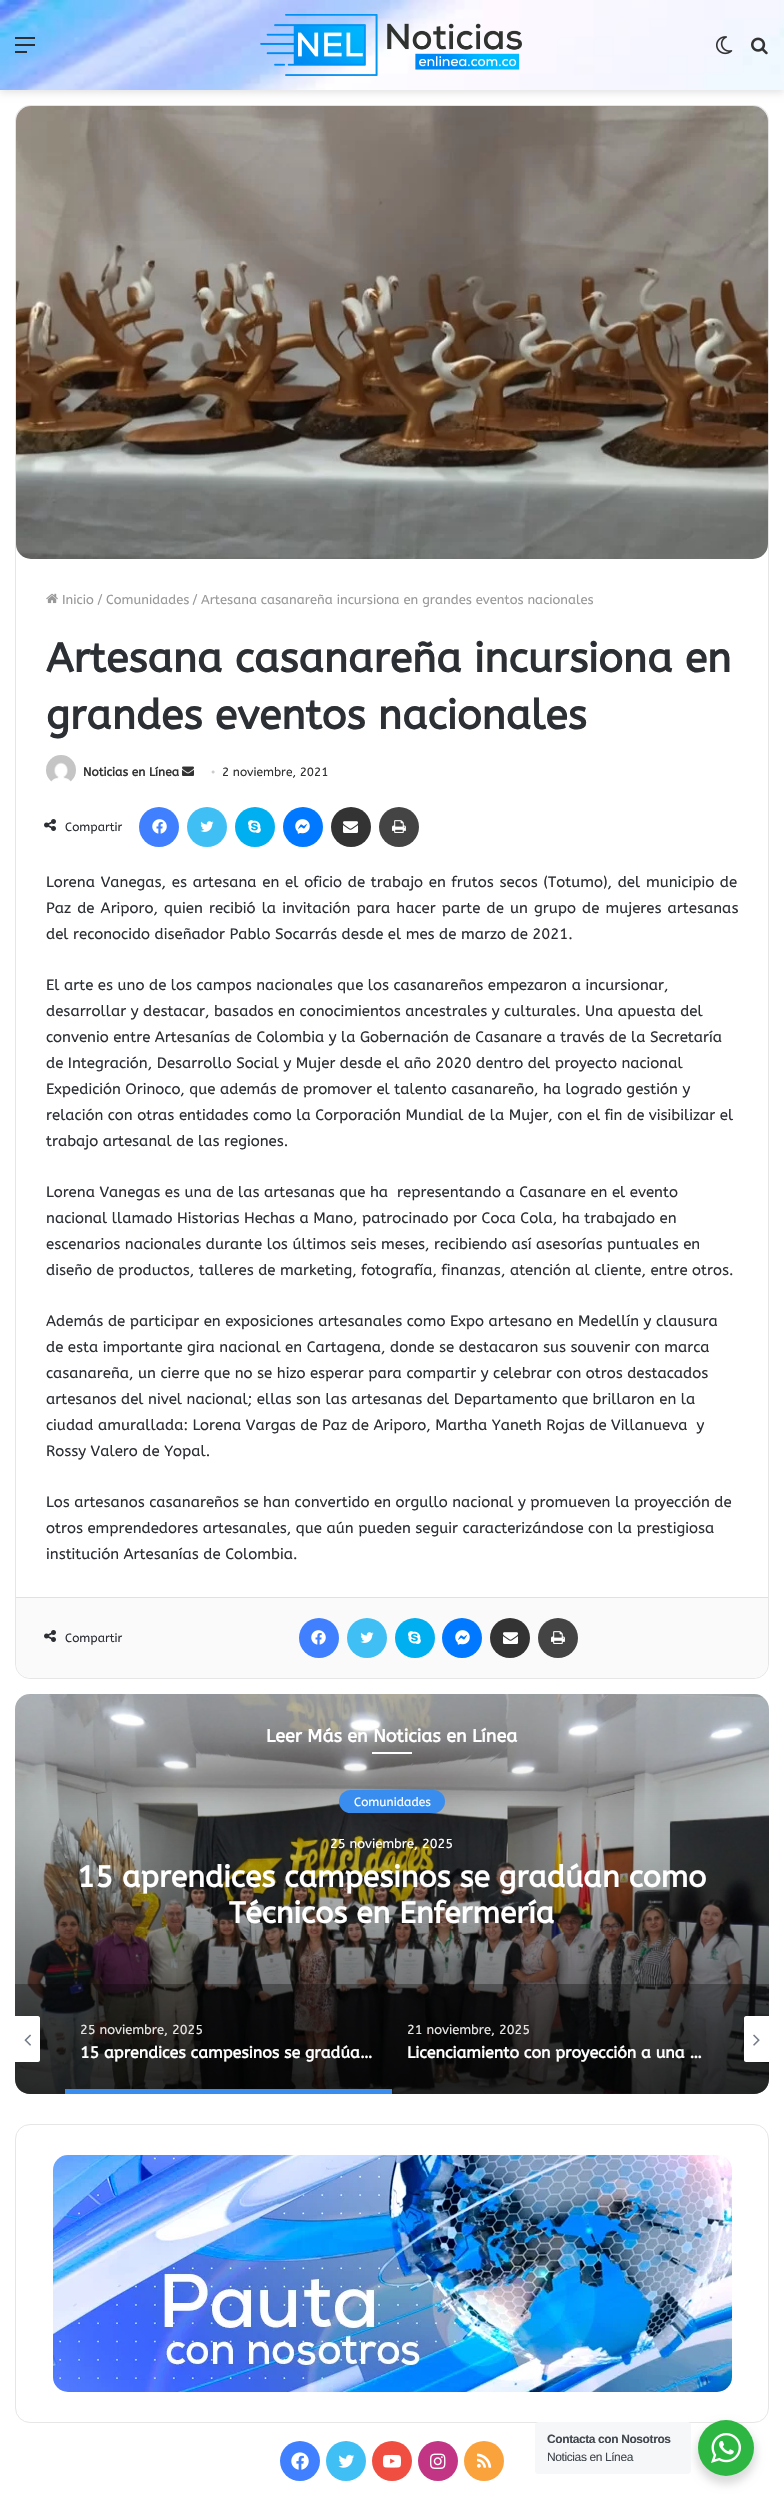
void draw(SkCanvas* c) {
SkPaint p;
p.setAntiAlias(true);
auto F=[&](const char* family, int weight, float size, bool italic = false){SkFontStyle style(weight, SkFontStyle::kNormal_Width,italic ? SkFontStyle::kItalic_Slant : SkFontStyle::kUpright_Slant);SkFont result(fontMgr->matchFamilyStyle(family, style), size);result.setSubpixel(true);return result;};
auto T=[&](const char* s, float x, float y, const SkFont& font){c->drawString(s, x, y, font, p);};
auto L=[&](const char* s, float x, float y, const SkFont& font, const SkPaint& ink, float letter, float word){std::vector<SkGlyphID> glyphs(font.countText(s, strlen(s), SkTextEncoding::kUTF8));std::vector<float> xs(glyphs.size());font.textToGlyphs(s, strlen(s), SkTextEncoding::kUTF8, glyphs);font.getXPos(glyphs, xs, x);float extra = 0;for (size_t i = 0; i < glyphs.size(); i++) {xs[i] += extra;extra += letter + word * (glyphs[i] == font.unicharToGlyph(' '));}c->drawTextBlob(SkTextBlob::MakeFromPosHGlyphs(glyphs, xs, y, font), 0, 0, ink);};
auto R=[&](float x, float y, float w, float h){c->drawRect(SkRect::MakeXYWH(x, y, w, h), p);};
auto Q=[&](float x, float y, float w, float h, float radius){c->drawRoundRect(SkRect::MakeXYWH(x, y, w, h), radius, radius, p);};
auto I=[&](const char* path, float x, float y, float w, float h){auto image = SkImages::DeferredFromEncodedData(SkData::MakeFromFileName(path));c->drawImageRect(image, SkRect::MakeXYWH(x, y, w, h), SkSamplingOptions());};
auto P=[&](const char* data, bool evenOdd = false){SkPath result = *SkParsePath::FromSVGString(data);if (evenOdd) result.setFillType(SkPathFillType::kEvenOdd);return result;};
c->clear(0xffffffff);
p.setColor(0x1a000000);
p.setMaskFilter(SkMaskFilter::MakeBlur(kNormal_SkBlurStyle, 3.5));
c->drawRect(SkRect::MakeXYWH(0,3,784,90),p);
p.setMaskFilter(nullptr);
I("1.png",0,0,784,90);
p.setColor(0xff2c2f34);
R(15,44,20,2);
R(15,37,20,2);
R(15,51,12,2);
I("2.png",260,14,262,62);
I("3.png",716,36,17,19);
I("4.png",751,37,17,18);
p.setStroke(true);
p.setStrokeWidth(1);
p.setColor(0xffe6e6e6);
c->drawRoundRect(SkRect::MakeXYWH(15.5,105.5,753,1573),14.5,14.5,p);
I("5.png",16,106,752,453);
I("6.png",46,593,12,11);
auto f1 = F("ABeeZee",400,13);
p.setStroke(false);
p.setColor(0xff999999);
T("Inicio",62,604,f1);
T("/",97,604,f1);
T("Comunidades",106,604,f1);
T("/",192,604,f1);
T("Artesana casanareña incursiona en grandes eventos nacionales",201,604,f1);
auto f2 = F("ABeeZee",700,41);
p.setColor(0xff2c2f34);
T("Artesana casanareña incursiona en",46,672,f2);
T("grandes eventos nacionales",46,729,f2);
I("7.png",46,755,30,27);
auto f3 = F("ABeeZee",700,12);
p.setColor(0xff333333);
T("Noticias en Línea",83,776,f3);
I("8.png",182,766,12,10);
auto f4 = F("Liberation Serif",400,12);
p.setColor(0xffcccccc);
T("•",211,776,f4);
auto f5 = F("ABeeZee",400,12);
p.setColor(0xff333333);
T("2 noviembre, 2021",222,776,f5);
I("9.png",44,819,12,12);
p.setColor(0xff2c2f34);
T("Compartir",65,831,f5);
p.setColor(0xff4080ff);
c->drawCircle(159,827,20,p);
I("10.png",152,819,15,15);
p.setColor(0xff40bff5);
c->drawCircle(207,827,20,p);
I("11.png",200,821,14,11);
p.setColor(0xff00aff0);
c->drawCircle(255,827,20,p);
I("12.png",248,820,13,13);
p.setColor(0xff0078ff);
c->drawCircle(303,827,20,p);
I("13.png",295,819,15,15);
p.setColor(0xff333333);
c->drawCircle(351,827,20,p);
I("14.png",343,821,15,12);
p.setColor(0xff444444);
c->drawCircle(399,827,20,p);
I("15.png",392,820,14,13);
auto f6 = F("ABeeZee",400,15);
p.setColor(0xff2c2f34);
L("Lorena Vanegas, es artesana en el oficio de trabajo en frutos secos (Totumo), del municipio de",46,887,f6,p,0,1.25);
L("Paz de Ariporo, quien recibió la invitación para hacer parte de un grupo de mujeres artesanas",46,913,f6,p,0,1.6);
T("del reconocido diseñador Pablo Socarrás desde el mes de marzo de 2021.",46,939,f6);
T("El arte es uno de los campos nacionales que los casanareños empezaron a incursionar,",46,990,f6);
T("desarrollar y destacar, basados en conocimientos ancestrales y culturales. Una apuesta del",46,1016,f6);
T("convenio entre Artesanías de Colombia y la Gobernación de Casanare a través de la Secretaría",46,1042,f6);
T("de Integración, Desarrollo Social y Mujer desde el año 2020 dentro del proyecto nacional",46,1068,f6);
T("Expedición Orinoco, que además de promover el talento casanareño, ha logrado gestión y",46,1094,f6);
T("relación con otras entidades como la Corporación Mundial de la Mujer, con el fin de visibilizar el",46,1120,f6);
T("trabajo artesanal de las regiones.",46,1146,f6);
T("Lorena Vanegas es una de las artesanas que ha  representando a Casanare en el evento",46,1197,f6);
T("nacional llamado Historias Hechas a Mano, patrocinado por Coca Cola, ha trabajado en",46,1223,f6);
T("escenarios nacionales durante los últimos seis meses, recibiendo así asesorías puntuales en",46,1249,f6);
T("diseño de productos, talleres de marketing, fotografía, finanzas, atención al cliente, entre otros.",46,1275,f6);
T("Además de participar en exposiciones artesanales como Expo artesano en Medellín y clausura",46,1326,f6);
T("de esta importante gira nacional en Cartagena, donde se destacaron sus souvenir con marca",46,1352,f6);
T("casanareña, un cierre que no se hizo esperar para compartir y celebrar con otros destacados",46,1378,f6);
T("artesanos del nivel nacional; ellas son las artesanas del Departamento que brillaron en la",46,1404,f6);
T("ciudad amurallada: Lorena Vargas de Paz de Ariporo, Martha Yaneth Rojas de Villanueva  y",46,1430,f6);
T("Rossy Valero de Yopal.",46,1456,f6);
T("Los artesanos casanareños se han convertido en orgullo nacional y promueven la proyección de",46,1507,f6);
T("otros emprendedores artesanales, que aún pueden seguir caracterizándose con la prestigiosa",46,1533,f6);
T("institución Artesanías de Colombia.",46,1559,f6);
p.setColor(0xfffafafa);
c->drawPath(P("M16 1597h752v66c0 8.5-6.5 15-15 15h-722c-8.5 0-15-6.5-15-15z"),p);
p.setColor(0xffe1e1e1);
R(16,1597,752,1);
I("16.png",44,1630,12,12);
p.setColor(0xff2c2f34);
T("Compartir",65,1642,f5);
p.setColor(0xff4080ff);
c->drawCircle(319,1638,20,p);
I("10.png",311,1630,15,15);
p.setColor(0xff40bff5);
c->drawCircle(367,1638,20,p);
I("11.png",360,1632,14,11);
p.setColor(0xff00aff0);
c->drawCircle(415,1638,20,p);
I("12.png",408,1631,13,13);
p.setColor(0xff0078ff);
c->drawCircle(462,1638,20,p);
I("13.png",455,1630,15,15);
p.setColor(0xff333333);
c->drawCircle(510,1638,20,p);
I("14.png",503,1632,15,12);
p.setColor(0xff444444);
c->drawCircle(558,1638,20,p);
I("15.png",551,1631,14,13);
I("17.png",15,1694,754,400);
auto f7 = F("ABeeZee",700,18);
p.setColor(0xffffffff);
T("Leer Más en Noticias en Línea",266,1742,f7);
R(372,1752,40,2);
{
const SkColor colors[] = {0x00000000,0xbf000000};
const float stops[] = {0,1};
const SkPoint ends[] = {{392,1754}, {392,2094}};
p.setShader(SkGradientShader::MakeLinear(ends, colors, stops, 2, SkTileMode::kClamp));
p.setAlpha(255);
}
c->drawPath(P("M15 1754h754v325c0 8.5-6.5 15-15 15h-724c-8.5 0-15-6.5-15-15z"),p);
p.setShader(nullptr);
p.setColor(0xff398dee);
Q(339,1790,106,23,11.5);
p.setColor(0xffffffff);
T("Comunidades",354,1806,f5);
T("25 noviembre, 2025",330,1848,f1);
auto f8 = F("ABeeZee",700,30);
T("15 aprendices campesinos se gradúan como",77,1887,f8);
T("Técnicos en Enfermería",229,1923,f8);
p.setColor(0x4d000000);
c->drawPath(P("M15 1984h754v95c0 8.5-6.5 15-15 15h-724c-8.5 0-15-6.5-15-15z"),p);
p.setColor(0xffffffff);
c->drawPath(P("M15 2016h23c1 0 2 1 2 2v42c0 1-1 2-2 2h-23z"),p);
I("18.png",24,2034,7,12);
c->drawPath(P("M746 2016h23v46h-23c-1 0-2-1-2-2v-42c0-1 1-2 2-2z"),p);
I("19.png",753,2034,7,12);
p.setColor(0xff398dee);
R(65,2089,327,5);
p.setColor(0xffe6e6e6);
T("25 noviembre, 2025",80,2034,f1);
auto f9 = F("ABeeZee",700,16);
p.setColor(0xffffffff);
T("15 aprendices campesinos se gradúa…",80,2058,f9);
p.setColor(0xffe6e6e6);
T("21 noviembre, 2025",407,2034,f1);
p.setColor(0xffffffff);
T("Licenciamiento con proyección a una …",407,2058,f9);
p.setStroke(true);
p.setColor(0xffe6e6e6);
c->drawRoundRect(SkRect::MakeXYWH(15.5,2124.5,753,298),14.5,14.5,p);
I("20.png",53,2155,679,237);
p.setStroke(false);
p.setColor(0xff4080ff);
c->drawCircle(300,2461,20,p);
I("21.png",291,2452,18,18);
p.setColor(0xff40bff5);
c->drawCircle(346,2461,20,p);
I("22.png",338,2454,17,14);
p.setColor(0xffef4e41);
c->drawCircle(392,2461,20,p);
I("23.png",383,2454,18,14);
p.setColor(0xffc13584);
c->drawCircle(438,2461,20,p);
I("24.png",430,2453,16,16);
p.setColor(0xfffaa33d);
c->drawCircle(484,2461,20,p);
I("25.png",477,2453,15,15);
p.setColor(0x24000000);
p.setMaskFilter(SkMaskFilter::MakeBlur(kNormal_SkBlurStyle, 4));
c->drawRoundRect(SkRect::MakeXYWH(696,2424,60,60),30,30,p);
p.setMaskFilter(nullptr);
p.setColor(0xfff5f7f9);
Q(535,2422,156,52,4);
auto f10 = F("Liberation Sans",700,12);
p.setColor(0xff43474e);
L("Contacta con Nosotros",547,2443,f10,p,-.4,0);
auto f11 = F("Liberation Sans",400,12);
L("Noticias en Línea",547,2461,f11,p,-.4,0);
p.setColor(0xff2db742);
c->drawCircle(726,2448,28,p);
I("26.png",711,2433,30,30);
}
